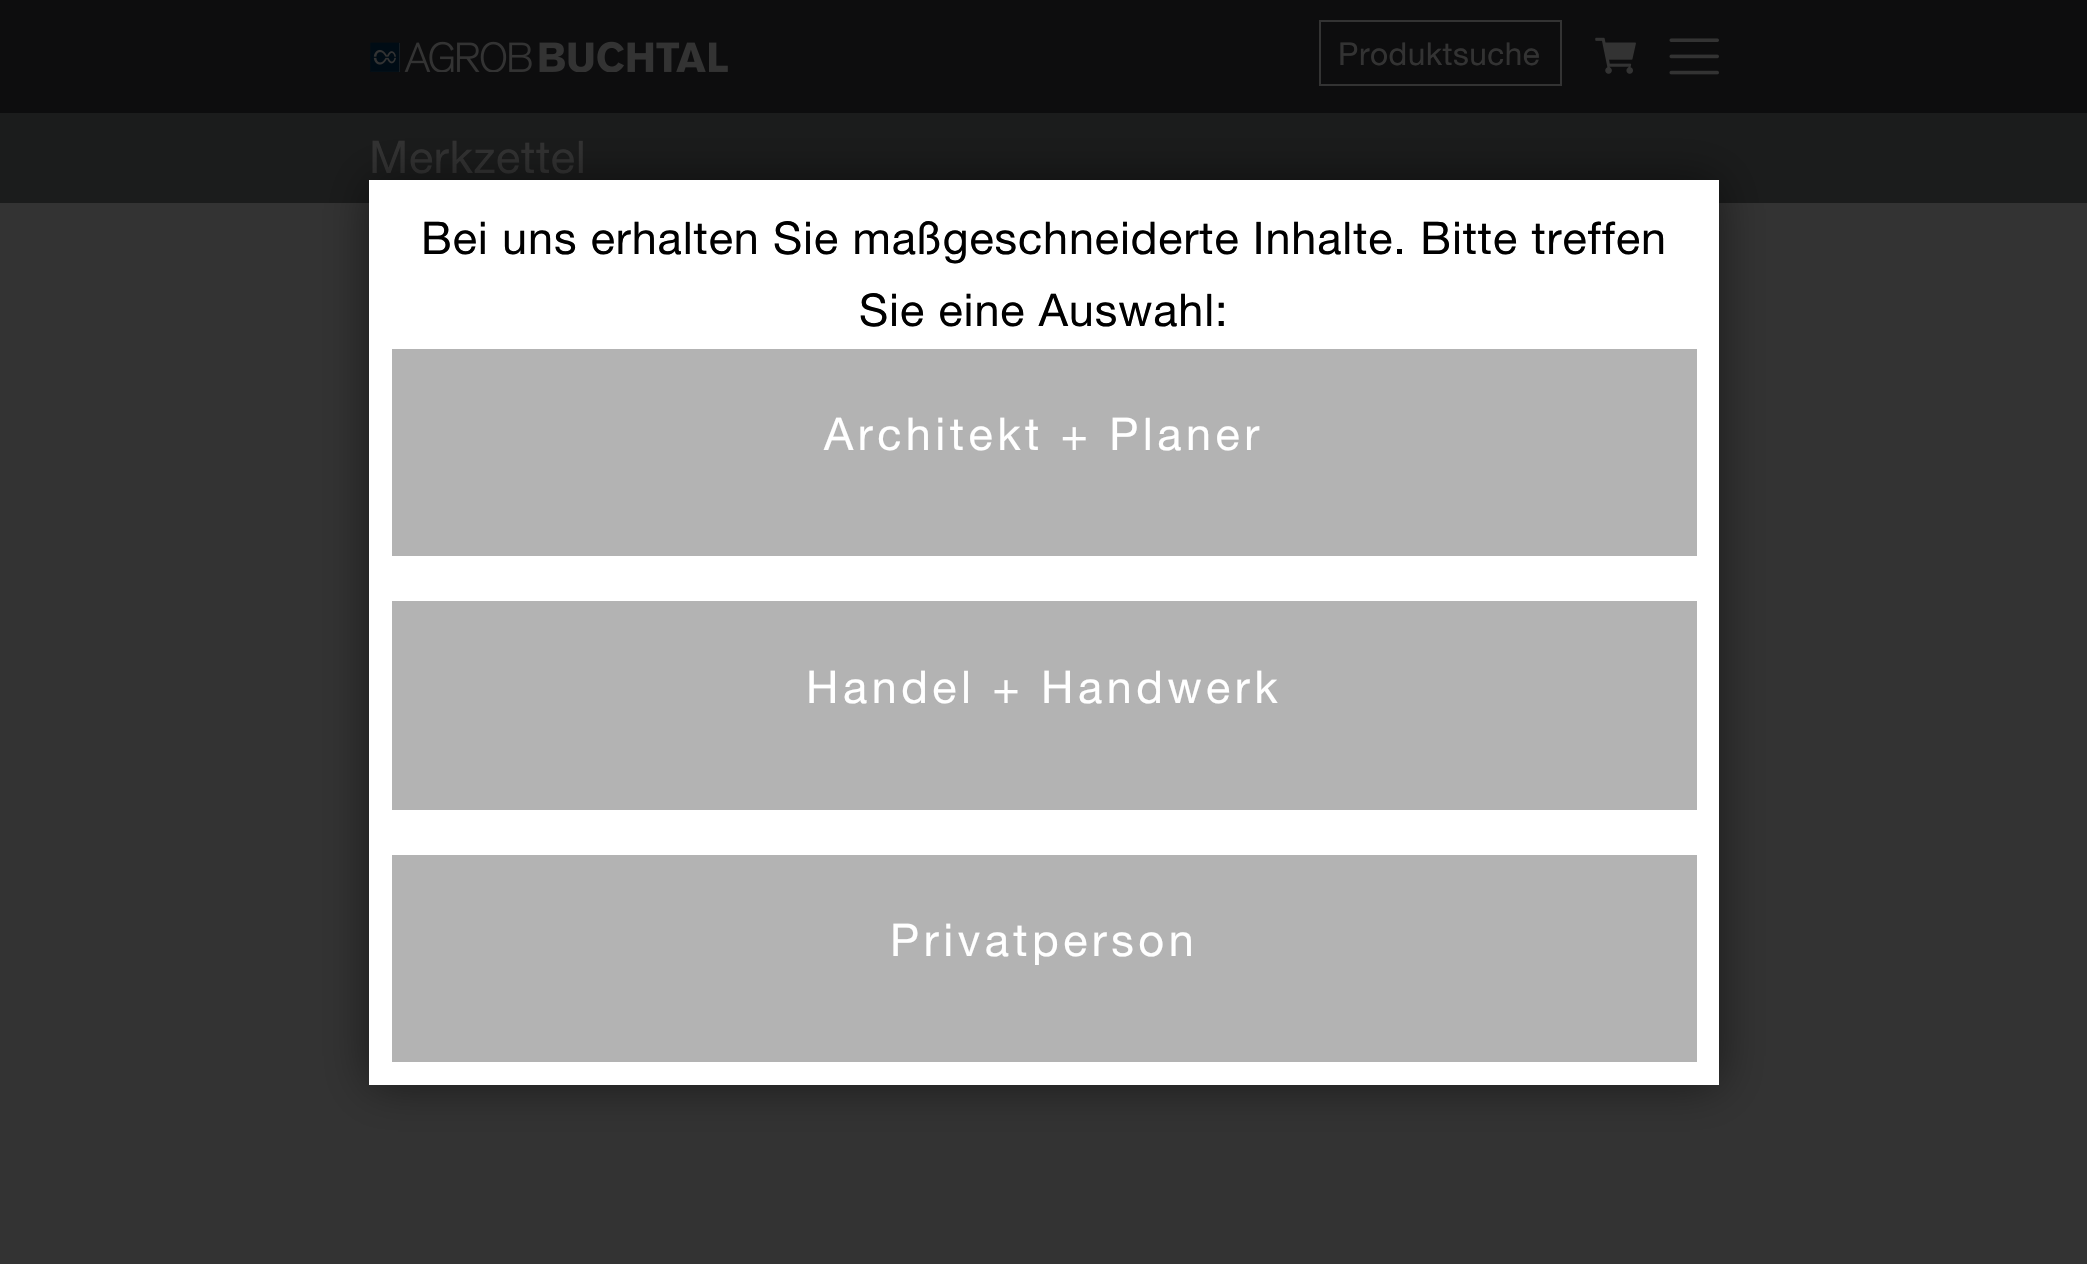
void draw(SkCanvas* c) {
SkPaint p;
p.setAntiAlias(true);
auto F=[&](const char* family, int weight, float size, bool italic = false){SkFontStyle style(weight, SkFontStyle::kNormal_Width,italic ? SkFontStyle::kItalic_Slant : SkFontStyle::kUpright_Slant);SkFont result(fontMgr->matchFamilyStyle(family, style), size);result.setSubpixel(true);return result;};
auto L=[&](const char* s, float x, float y, const SkFont& font, const SkPaint& ink, float letter, float word){std::vector<SkGlyphID> glyphs(font.countText(s, strlen(s), SkTextEncoding::kUTF8));std::vector<float> xs(glyphs.size());font.textToGlyphs(s, strlen(s), SkTextEncoding::kUTF8, glyphs);font.getXPos(glyphs, xs, x);float extra = 0;for (size_t i = 0; i < glyphs.size(); i++) {xs[i] += extra;extra += letter + word * (glyphs[i] == font.unicharToGlyph(' '));}c->drawTextBlob(SkTextBlob::MakeFromPosHGlyphs(glyphs, xs, y, font), 0, 0, ink);};
auto R=[&](float x, float y, float w, float h){c->drawRect(SkRect::MakeXYWH(x, y, w, h), p);};
auto I=[&](const char* path, float x, float y, float w, float h){auto image = SkImages::DeferredFromEncodedData(SkData::MakeFromFileName(path));c->drawImageRect(image, SkRect::MakeXYWH(x, y, w, h), SkSamplingOptions());};
c->clear(0xff333333);
p.setColor(0xff0d0d0e);
R(0,0,2087,113);
I("1.png",370,41,358,31);
p.setStroke(true);
p.setStrokeWidth(2);
p.setColor(0xff333333);
c->drawRect(SkRect::MakeXYWH(1320,21,241,64),p);
auto f1 = F("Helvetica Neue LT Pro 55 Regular",400,31.5);
p.setStroke(false);
L("Produktsuche",1338,65,f1,p,.5,0);
I("2.png",1595,37,41,37);
I("3.png",1669,38,50,37);
p.setColor(0xff1b1c1c);
R(0,113,2087,90);
auto f2 = F("Helvetica Neue LT Pro 55 Regular",400,45);
p.setColor(0xff333333);
L("Merkzettel",369,173,f2,p,.75,0);
p.setColor(0x80000000);
p.setMaskFilter(SkMaskFilter::MakeBlur(kNormal_SkBlurStyle, 22.5));
c->drawRect(SkRect::MakeXYWH(369,180,1350,905),p);
p.setMaskFilter(nullptr);
p.setColor(0xffffffff);
R(369,180,1350,905);
p.setColor(0xff000000);
L("Bei uns erhalten Sie maßgeschneiderte Inhalte. Bitte treffen",421,254,f2,p,.9,0);
L("Sie eine Auswahl:",859,326,f2,p,.9,0);
p.setColor(0xffb3b3b3);
R(392,349,1305,207);
p.setColor(0xffffffff);
L("Architekt + Planer",824,450,f2,p,4.5,0);
p.setColor(0xffb3b3b3);
R(392,601,1305,209);
p.setColor(0xffffffff);
L("Handel + Handwerk",806,703,f2,p,4.5,0);
p.setColor(0xffb3b3b3);
R(392,855,1305,207);
p.setColor(0xffffffff);
L("Privatperson",890,956,f2,p,4.5,0);
}
